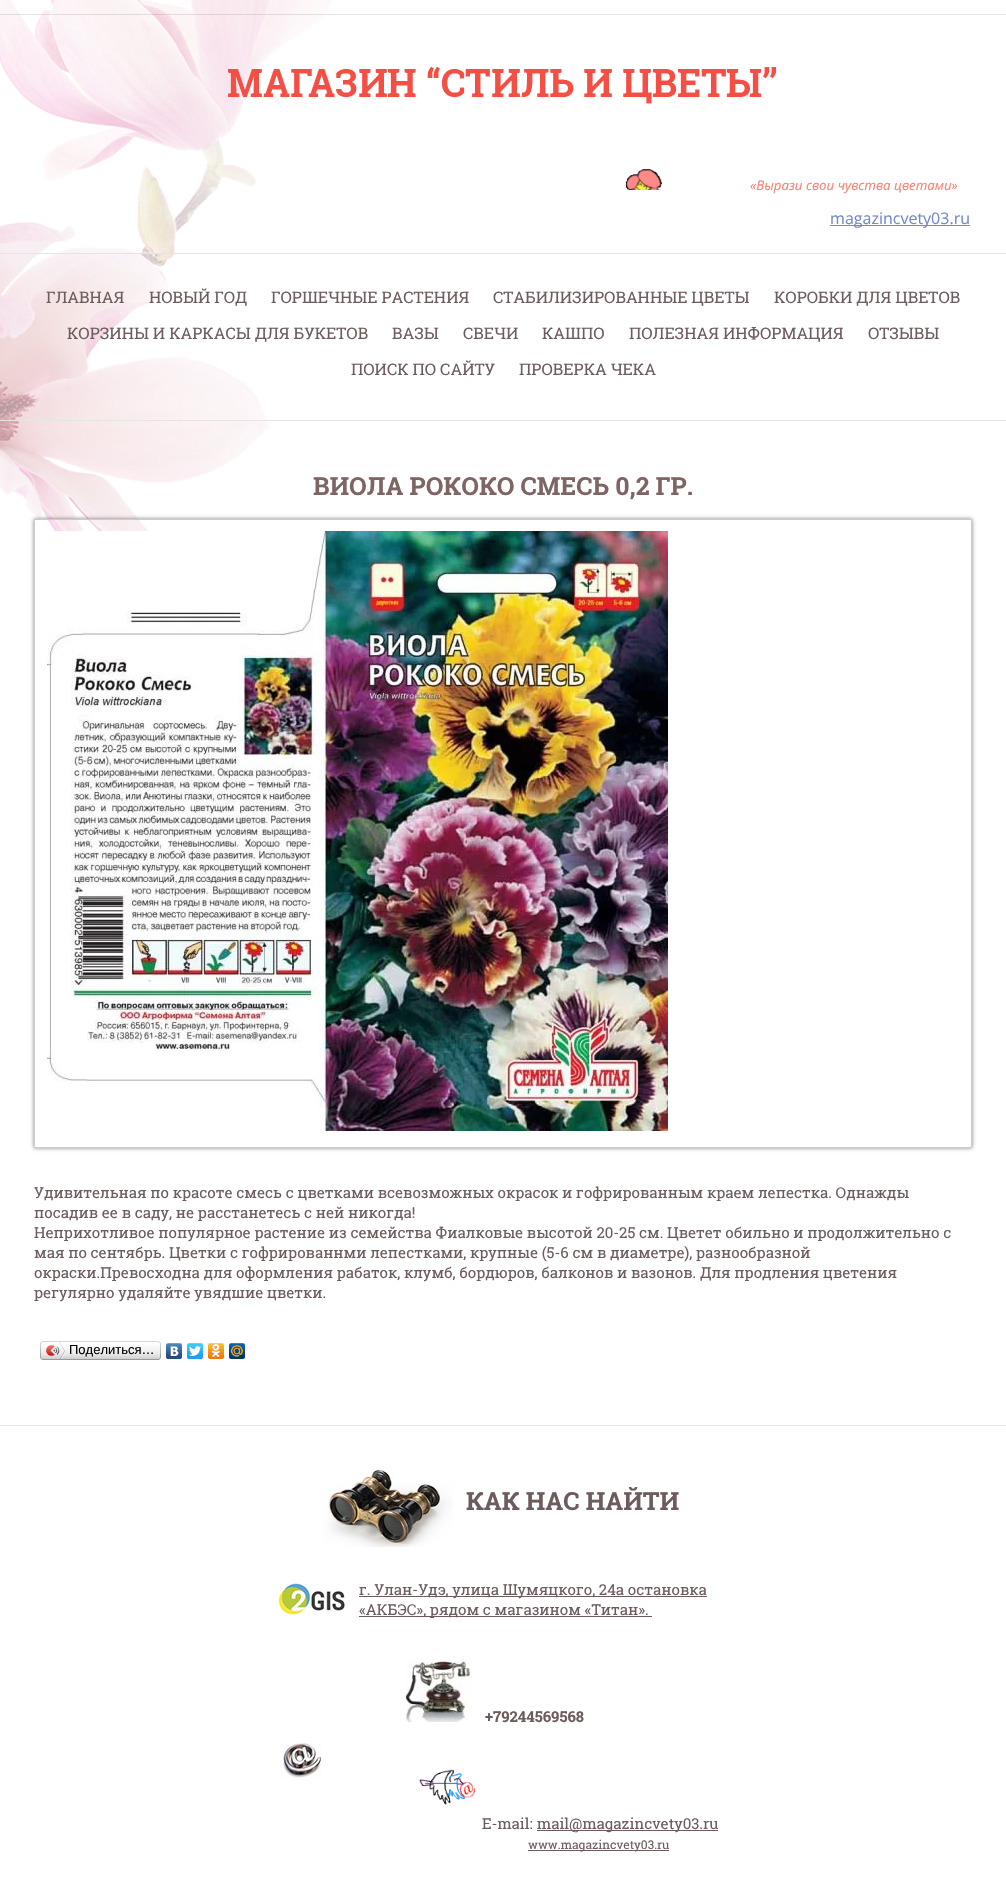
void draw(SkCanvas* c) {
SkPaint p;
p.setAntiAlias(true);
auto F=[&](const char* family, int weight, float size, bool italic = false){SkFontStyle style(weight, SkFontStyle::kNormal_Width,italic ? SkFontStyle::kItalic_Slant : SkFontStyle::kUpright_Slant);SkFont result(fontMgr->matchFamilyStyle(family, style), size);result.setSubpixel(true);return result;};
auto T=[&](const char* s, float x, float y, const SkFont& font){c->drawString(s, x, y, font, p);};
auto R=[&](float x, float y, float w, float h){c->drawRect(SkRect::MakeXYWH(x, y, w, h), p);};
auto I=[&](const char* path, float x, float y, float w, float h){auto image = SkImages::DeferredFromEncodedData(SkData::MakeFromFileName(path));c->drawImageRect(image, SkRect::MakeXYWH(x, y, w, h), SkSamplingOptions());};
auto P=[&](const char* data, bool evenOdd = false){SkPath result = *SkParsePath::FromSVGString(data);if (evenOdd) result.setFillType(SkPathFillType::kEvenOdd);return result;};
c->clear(0xffffffff);
I("1.png",0,0,1006,627);
I("2.png",228,67,549,37);
I("3.png",625,169,37,21);
auto f1 = F("oi",400,13.3,true);
p.setColor(0xfffa8179);
T("«Вырази свои чувства цветами»",750,190,f1);
p.setColor(0xff7488c9);
R(830,225,140,1);
auto f2 = F("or",400,16);
T("magazincvety03.ru",830,224,f2);
p.setColor(0xffe5e5e6);
R(0,253,1006,1);
R(0,420,1006,1);
auto f3 = F("Roboto Slab",400,16);
p.setColor(0xff6d5c5d);
T("ГЛАВНАЯ",46,303,f3);
T("НОВЫЙ ГОД",149,303,f3);
T("ГОРШЕЧНЫЕ РАСТЕНИЯ",271,303,f3);
T("СТАБИЛИЗИРОВАННЫЕ ЦВЕТЫ",493,303,f3);
T("КОРОБКИ ДЛЯ ЦВЕТОВ",774,303,f3);
T("КОРЗИНЫ И КАРКАСЫ ДЛЯ БУКЕТОВ",67,339,f3);
T("ВАЗЫ",392,339,f3);
T("СВЕЧИ",463,339,f3);
T("КАШПО",542,339,f3);
T("ПОЛЕЗНАЯ ИНФОРМАЦИЯ",629,339,f3);
T("ОТЗЫВЫ",868,339,f3);
T("ПОИСК ПО САЙТУ",351,375,f3);
T("ПРОВЕРКА ЧЕКА",519,375,f3);
auto f4 = F("Roboto Slab",700,25);
p.setColor(0xff7f6464);
T("ВИОЛА РОКОКО СМЕСЬ 0,2 ГР.",313,495,f4);
c->save();
c->clipPath(P("M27 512h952v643h-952zm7 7h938v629h-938z",true),true);
p.setColor(0x80000000);
p.setMaskFilter(SkMaskFilter::MakeBlur(kNormal_SkBlurStyle, 2));
c->drawRect(SkRect::MakeXYWH(34,519,938,629),p);
p.setMaskFilter(nullptr);
c->restore();
p.setStroke(true);
p.setStrokeWidth(1);
p.setColor(0xffcccccc);
c->drawRect(SkRect::MakeXYWH(34.5,519.5,937,628),p);
I("4.png",47,531,621,600);
auto f5 = F("Roboto Slab",400,15);
p.setStroke(false);
p.setColor(0xff6d5c5d);
T("Удивительная по красоте смесь с цветками всевозможных окрасок и гофрированным краем лепестка. Однажды",34,1198,f5);
T("посадив ее в саду, не расстанетесь с ней никогда!",34,1218,f5);
T("Неприхотливое популярное растение из семейства Фиалковые высотой 20-25 см. Цветет обильно и продолжительно с",34,1238,f5);
T("мая по сентябрь. Цветки с гофрированнми лепестками, крупные (5-6 см в диаметре), разнообразной",34,1258,f5);
T("окраски.Превосходна для оформления рабаток, клумб, бордюров, балконов и вазонов. Для продления цветения",34,1278,f5);
T("регулярно удаляйте увядшие цветки.",34,1298,f5);
I("5.png",43,1341,115,19);
I("6.png",40,1341,3,19);
I("7.png",46,1342,20,17);
auto f6 = F("Liberation Sans",400,13);
p.setColor(0xff000000);
T("Поделиться…",69,1354,f6);
I("8.png",158,1341,3,19);
I("9.png",166,1343,16,16);
I("10.png",187,1343,16,16);
I("11.png",208,1343,16,16);
I("12.png",229,1343,16,16);
p.setColor(0xffe5e5e6);
R(0,1425,1006,1);
I("13.png",323,1466,130,81);
p.setColor(0xff6d5c5d);
T("КАК НАС НАЙТИ",466,1510,f4);
I("14.png",279,1583,66,32);
R(359,1596,348,1);
T("г. Улан-Удэ, улица Шумяцкого, 24а остановка",359,1595,f5);
R(359,1616,293,1);
T("«АКБЭС», рядом с магазином «Титан».",359,1615,f5);
I("15.png",404,1659,68,63);
auto f7 = F("Roboto Slab",700,15);
T("+79244569568",485,1722,f7);
I("16.png",283,1743,39,35);
I("17.png",419,1769,56,36);
T("E-mail:",482,1829,f5);
R(537,1830,181,1);
T("mail@magazincvety03.ru",537,1829,f5);
R(528,1850,141,1);
auto f8 = F("Roboto Slab",400,12);
T("www.magazincvety03.ru",528,1849,f8);
}
